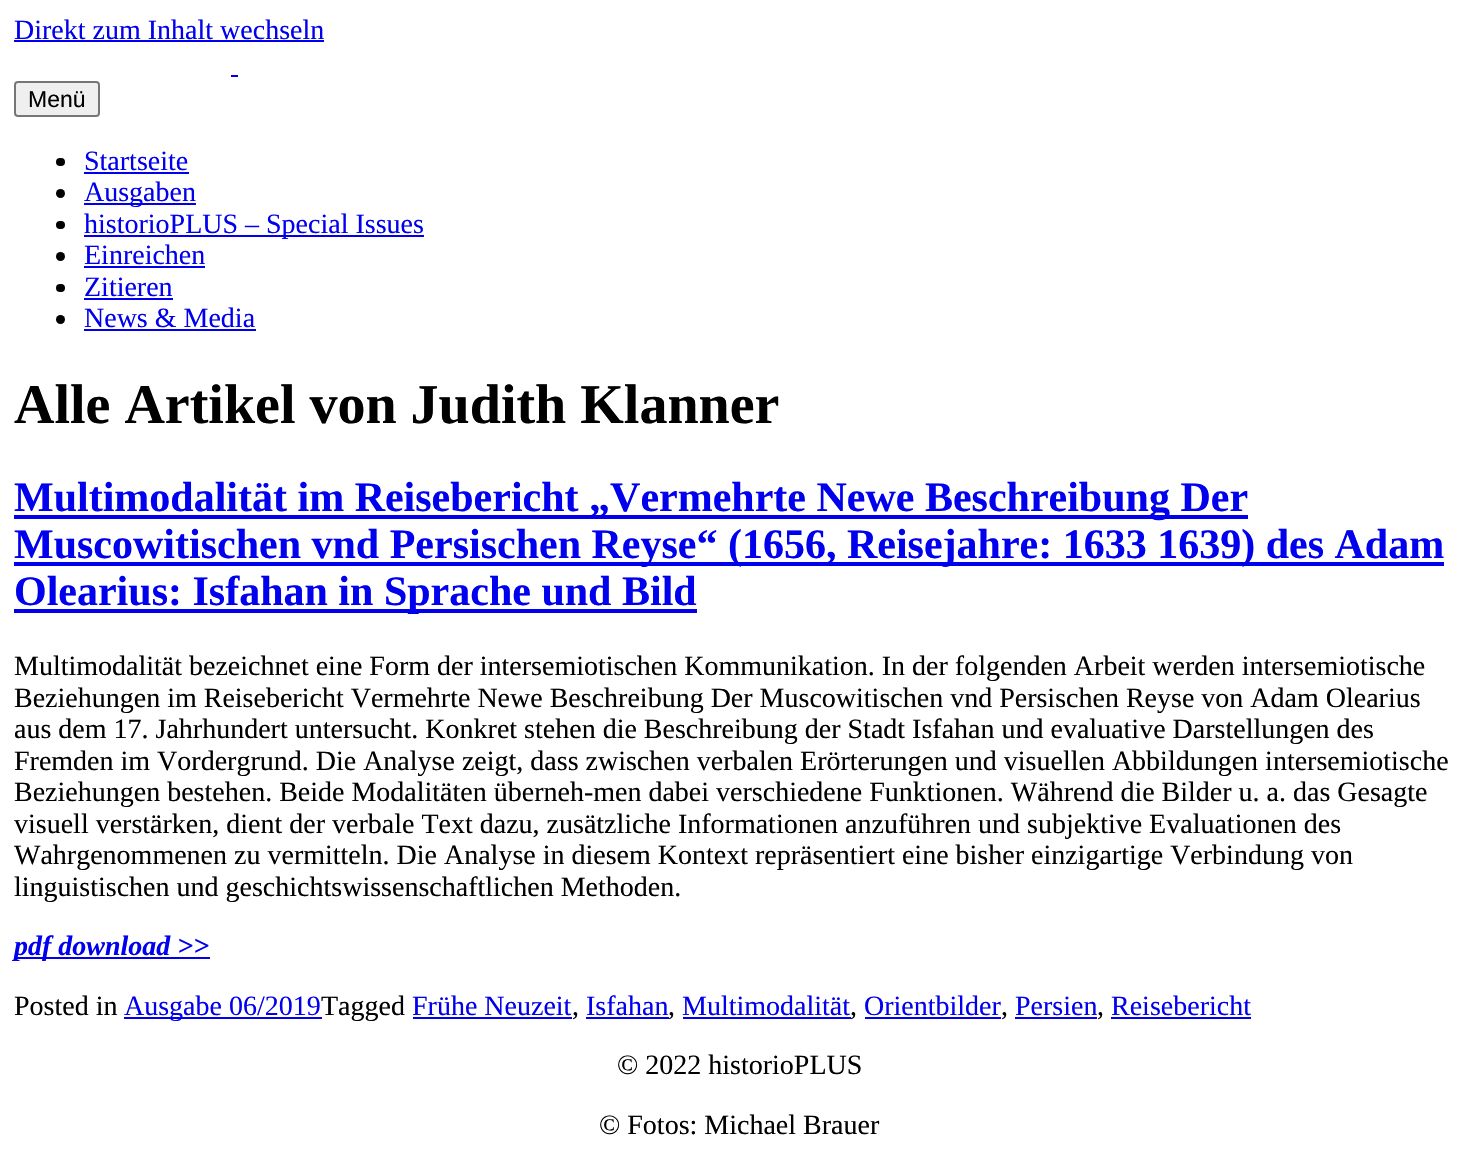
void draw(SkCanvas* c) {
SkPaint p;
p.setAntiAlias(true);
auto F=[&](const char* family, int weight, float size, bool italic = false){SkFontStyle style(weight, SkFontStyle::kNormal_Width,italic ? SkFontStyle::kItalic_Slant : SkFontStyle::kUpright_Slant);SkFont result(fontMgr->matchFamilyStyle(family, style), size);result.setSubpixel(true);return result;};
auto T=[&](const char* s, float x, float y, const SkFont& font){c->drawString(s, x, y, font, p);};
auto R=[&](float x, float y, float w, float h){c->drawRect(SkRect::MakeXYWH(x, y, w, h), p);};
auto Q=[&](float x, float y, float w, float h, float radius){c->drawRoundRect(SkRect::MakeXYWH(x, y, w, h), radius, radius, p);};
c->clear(0xffffffff);
auto f1 = F("Liberation Serif",400,28);
p.setColor(0xff0000ee);
T("Direkt zum Inhalt wechseln",14,39,f1);
R(14,40,310,2);
R(231,75,7,2);
p.setColor(0xffefefef);
c->drawRoundRect(SkRect::MakeXYWH(15,82,84,34),3,3,p);
p.setStroke(true);
p.setStrokeWidth(2);
p.setColor(0xff767676);
c->drawRoundRect(SkRect::MakeXYWH(15,82,84,34),3,3,p);
auto f2 = F("Liberation Sans",400,23);
p.setStroke(false);
p.setColor(0xff000000);
T("Menü",28,107,f2);
Q(56,158,9,8,4);
p.setColor(0xff0000ee);
T("Startseite",84,170,f1);
R(84,172,105,2);
p.setColor(0xff000000);
c->drawCircle(60.5,193.5,4.5,p);
p.setColor(0xff0000ee);
R(84,203,112,2);
T("Ausgaben",84,201,f1);
p.setColor(0xff000000);
Q(56,221,9,8,4);
p.setColor(0xff0000ee);
R(84,235,340,2);
T("historioPLUS – Special Issues",84,233,f1);
p.setColor(0xff000000);
c->drawCircle(60.5,256.5,4.5,p);
p.setColor(0xff0000ee);
T("Einreichen",84,264,f1);
R(84,266,121,2);
p.setColor(0xff000000);
Q(56,284,9,8,4);
p.setColor(0xff0000ee);
T("Zitieren",84,296,f1);
R(84,298,89,2);
p.setColor(0xff000000);
c->drawCircle(60.5,319.5,4.5,p);
p.setColor(0xff0000ee);
T("News & Media",84,327,f1);
R(84,329,172,2);
auto f3 = F("Liberation Serif",700,56);
p.setColor(0xff000000);
T("Alle Artikel von Judith Klanner",14,423,f3);
p.setColor(0xff0000ee);
R(14,515,1234,4);
auto f4 = F("Liberation Serif",700,42);
T("Multimodalität im Reisebericht „Vermehrte Newe Beschreibung Der",14,511,f4);
R(14,562,1430,4);
T("Muscowitischen vnd Persischen Reyse“ (1656, Reisejahre: 1633 1639) des Adam",14,558,f4);
R(14,609,683,4);
T("Olearius: Isfahan in Sprache und Bild",14,605,f4);
p.setColor(0xff000000);
T("Multimodalität bezeichnet eine Form der intersemiotischen Kommunikation. In der folgenden Arbeit werden intersemiotische",14,675,f1);
T("Beziehungen im Reisebericht Vermehrte Newe Beschreibung Der Muscowitischen vnd Persischen Reyse von Adam Olearius",14,707,f1);
T("aus dem 17. Jahrhundert untersucht. Konkret stehen die Beschreibung der Stadt Isfahan und evaluative Darstellungen des",14,738,f1);
T("Fremden im Vordergrund. Die Analyse zeigt, dass zwischen verbalen Erörterungen und visuellen Abbildungen intersemiotische",14,770,f1);
T("Beziehungen bestehen. Beide Modalitäten überneh-men dabei verschiedene Funktionen. Während die Bilder u. a. das Gesagte",14,801,f1);
T("visuell verstärken, dient der verbale Text dazu, zusätzliche Informationen anzuführen und subjektive Evaluationen des",14,833,f1);
T("Wahrgenommenen zu vermitteln. Die Analyse in diesem Kontext repräsentiert eine bisher einzigartige Verbindung von",14,864,f1);
T("linguistischen und geschichtswissenschaftlichen Methoden.",14,896,f1);
p.setColor(0xff0000ee);
R(14,957,196,2);
auto f5 = F("Liberation Serif",700,28,true);
T("pdf download >>",14,955,f5);
p.setColor(0xff000000);
T("Posted in",14,1015,f1);
p.setColor(0xff0000ee);
R(124,1017,198,2);
T("Ausgabe 06/2019",124,1015,f1);
p.setColor(0xff000000);
T("Tagged",321,1015,f1);
p.setColor(0xff0000ee);
T("Frühe Neuzeit",412,1015,f1);
p.setColor(0xff000000);
T(",",572,1015,f1);
p.setColor(0xff0000ee);
R(413,1017,159,2);
T("Isfahan",586,1015,f1);
p.setColor(0xff000000);
T(",",668,1015,f1);
p.setColor(0xff0000ee);
R(586,1017,83,2);
T("Multimodalität",682,1015,f1);
p.setColor(0xff000000);
T(",",850,1015,f1);
p.setColor(0xff0000ee);
R(683,1017,168,2);
T("Orientbilder",864,1015,f1);
p.setColor(0xff000000);
T(",",1001,1015,f1);
p.setColor(0xff0000ee);
R(865,1017,136,2);
T("Persien",1015,1015,f1);
p.setColor(0xff000000);
T(",",1097,1015,f1);
p.setColor(0xff0000ee);
R(1015,1017,82,2);
R(1111,1017,140,2);
T("Reisebericht",1111,1015,f1);
p.setColor(0xff000000);
T("© 2022 historioPLUS",617,1074,f1);
T("© Fotos: Michael Brauer",599,1134,f1);
}
